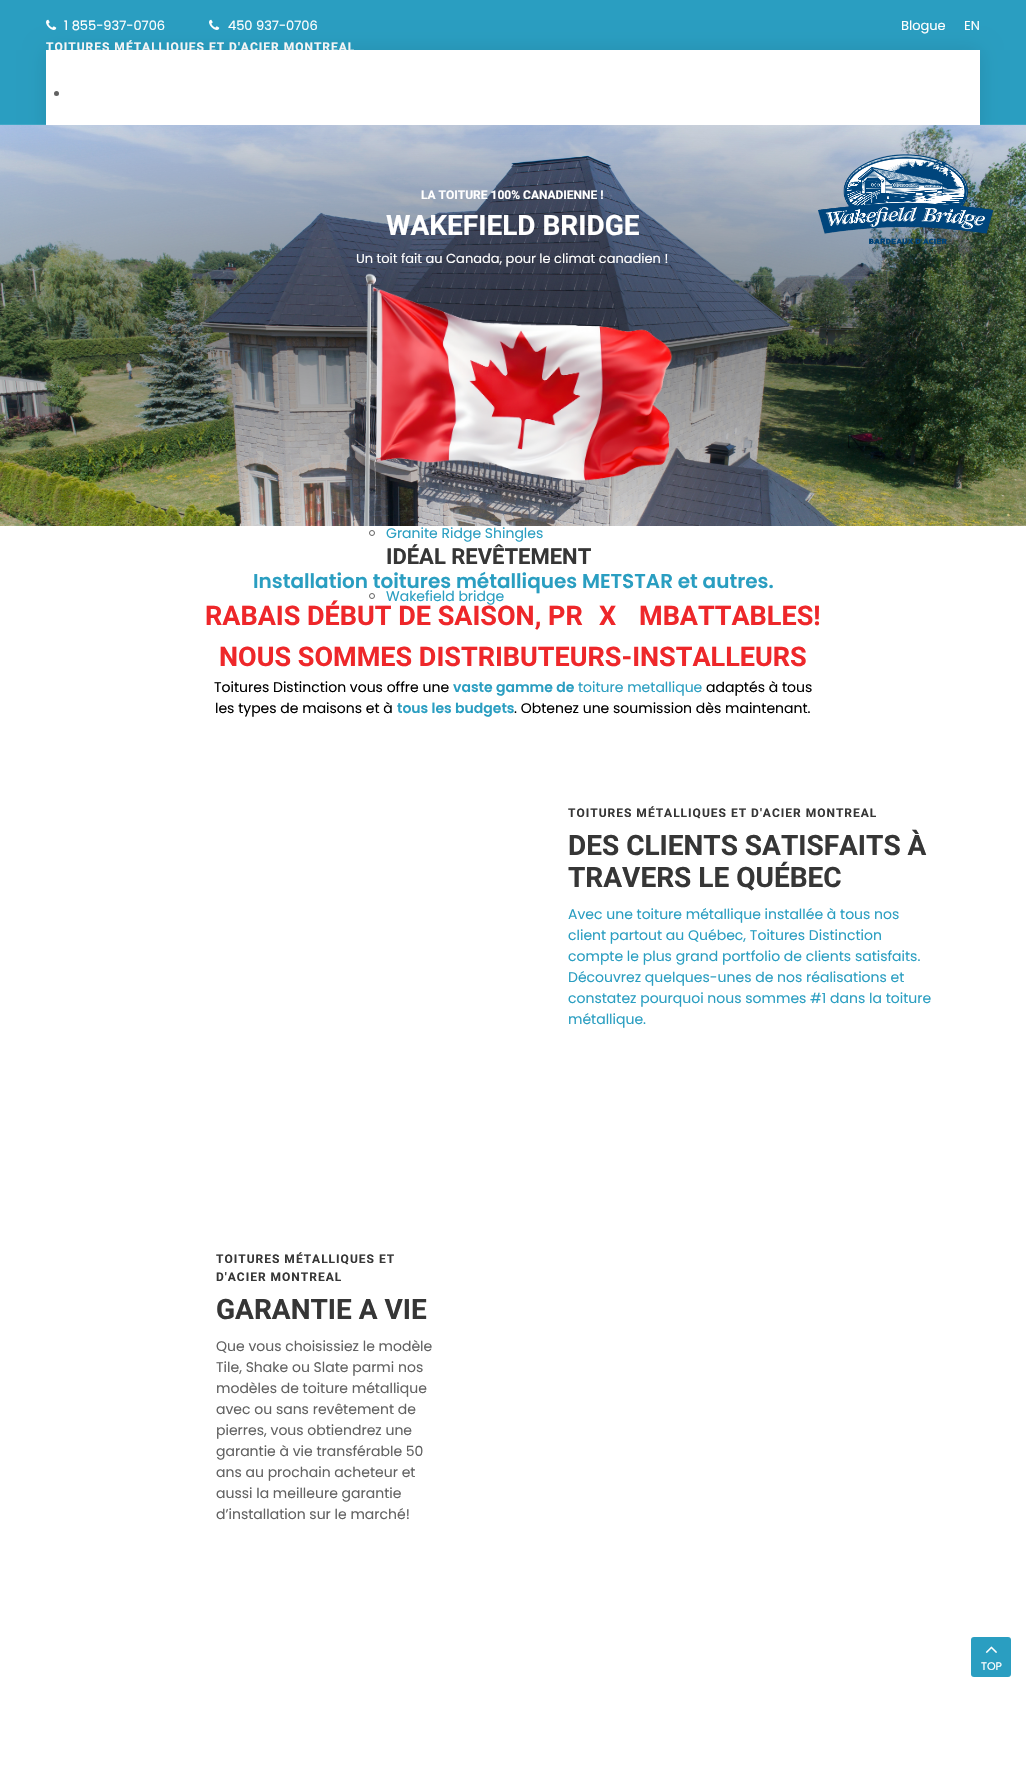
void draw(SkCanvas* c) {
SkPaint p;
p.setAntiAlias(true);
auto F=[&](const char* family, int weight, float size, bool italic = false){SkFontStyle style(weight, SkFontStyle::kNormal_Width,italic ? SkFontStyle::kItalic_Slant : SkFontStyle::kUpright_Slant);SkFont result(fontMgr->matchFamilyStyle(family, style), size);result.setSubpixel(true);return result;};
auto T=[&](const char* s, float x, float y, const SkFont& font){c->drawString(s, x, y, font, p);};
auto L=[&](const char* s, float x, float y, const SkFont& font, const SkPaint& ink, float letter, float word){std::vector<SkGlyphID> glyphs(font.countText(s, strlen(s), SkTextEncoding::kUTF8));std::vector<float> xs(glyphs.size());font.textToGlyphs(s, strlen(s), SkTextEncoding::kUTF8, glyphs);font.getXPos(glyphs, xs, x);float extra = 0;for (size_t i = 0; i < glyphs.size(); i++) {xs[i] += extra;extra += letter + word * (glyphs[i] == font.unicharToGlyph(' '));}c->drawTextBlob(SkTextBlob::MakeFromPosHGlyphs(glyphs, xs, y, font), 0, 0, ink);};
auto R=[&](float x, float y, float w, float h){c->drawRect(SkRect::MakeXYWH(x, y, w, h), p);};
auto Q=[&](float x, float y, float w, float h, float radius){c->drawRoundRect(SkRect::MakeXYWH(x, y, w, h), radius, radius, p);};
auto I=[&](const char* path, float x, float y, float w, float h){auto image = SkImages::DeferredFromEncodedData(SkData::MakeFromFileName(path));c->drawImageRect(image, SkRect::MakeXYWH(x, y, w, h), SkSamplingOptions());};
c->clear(0xffffffff);
p.setColor(0xff2a9ec1);
R(0,0,1026,124);
p.setColor(0xff3fa8c7);
R(0,124,1026,1);
I("1.png",46,19,11,11);
auto f1 = F("Poppins",400,13);
p.setColor(0xffffffff);
T("1 855-937-0706",64,30,f1);
I("1.png",209,19,11,11);
T("450 937-0706",228,30,f1);
auto f2 = F("Roboto",700,12);
L("TOITURES MÉTALLIQUES ET D'ACIER MONTREAL",46,51,f2,p,1,0);
T("Blogue",901,30,f1);
T("EN",964,30,f1);
p.setColor(0x1a000000);
p.setMaskFilter(SkMaskFilter::MakeBlur(kNormal_SkBlurStyle, 10));
c->drawRect(SkRect::MakeXYWH(46,50,934,90),p);
p.setMaskFilter(nullptr);
p.setColor(0xffffffff);
R(46,50,934,75);
p.setColor(0xff626262);
c->drawCircle(56.5,93.5,2.5,p);
p.setStroke(true);
p.setStrokeWidth(1);
c->drawCircle(372,533,2.5,p);
auto f3 = F("Poppins",400,14);
p.setStroke(false);
p.setColor(0xff2a9ec1);
T("Granite Ridge Shingles",386,538,f3);
auto f4 = F("Roboto",700,22);
p.setColor(0xff363636);
T("IDÉAL REVÊTEMENT",386,564,f4);
p.setStroke(true);
p.setColor(0xff626262);
c->drawCircle(372,596,2.5,p);
p.setStroke(false);
p.setColor(0xff2a9ec1);
T("Wakefield bridge",386,601,f3);
I("2.png",0,125,1026,401);
p.setColor(0xffffffff);
T("LA TOITURE 100% CANADIENNE !",421,199,f2);
I("3.png",818,154,176,90);
auto f5 = F("Roboto",700,28);
T("WAKEFIELD BRIDGE",386,235,f5);
T("Un toit fait au Canada, pour le climat canadien !",356,263,f1);
I("4.png",363,273,310,253);
auto f6 = F("Poppins",600,20);
p.setColor(0xff2a9ec1);
T("Installation toitures métalliques METSTAR et autres.",253,588,f6);
auto f7 = F("Roboto",700,27);
p.setColor(0xffee272a);
T("RABAIS DÉBUT DE SAISON, PR",205,625,f7);
T("X",599,625,f7);
T("MBATTABLES!",639,625,f7);
T("NOUS SOMMES DISTRIBUTEURS-INSTALLEURS",219,666,f7);
p.setColor(0xff000000);
T("Toitures Distinction vous offre une",214,692,f3);
auto f8 = F("Poppins",600,14);
p.setColor(0xff2a9ec1);
T("vaste gamme de",453,692,f8);
T("toiture metallique",578,692,f3);
p.setColor(0xff000000);
T("adaptés à tous",706,692,f3);
T("les types de maisons et à",215,713,f3);
p.setColor(0xff2a9ec1);
T("tous les budgets",397,713,f8);
p.setColor(0xff000000);
T(". Obtenez une soumission dès maintenant.",514,713,f3);
p.setColor(0xff363636);
L("TOITURES MÉTALLIQUES ET D'ACIER MONTREAL",568,817,f2,p,1,0);
T("DES CLIENTS SATISFAITS À",568,855,f5);
T("TRAVERS LE QUÉBEC",568,887,f5);
p.setColor(0xff2a9ec1);
T("Avec une toiture métallique installée à tous nos",568,919,f3);
T("client partout au Québec, Toitures Distinction",568,940,f3);
T("compte le plus grand portfolio de clients satisfaits.",568,961,f3);
T("Découvrez quelques-unes de nos réalisations et",568,982,f3);
T("constatez pourquoi nous sommes #1 dans la toiture",568,1003,f3);
T("métallique.",568,1024,f3);
p.setColor(0xff363636);
L("TOITURES MÉTALLIQUES ET",216,1263,f2,p,1,0);
L("D'ACIER MONTREAL",216,1281,f2,p,1,0);
T("GARANTIE A VIE",216,1319,f5);
p.setColor(0xff626262);
T("Que vous choisissiez le modèle",216,1351,f3);
T("Tile, Shake ou Slate parmi nos",216,1372,f3);
T("modèles de toiture métallique",216,1393,f3);
T("avec ou sans revêtement de",216,1414,f3);
T("pierres, vous obtiendrez une",216,1435,f3);
T("garantie à vie transférable 50",216,1456,f3);
T("ans au prochain acheteur et",216,1477,f3);
T("aussi la meilleure garantie",216,1498,f3);
T("d’installation sur le marché!",216,1519,f3);
p.setColor(0xff2a9ec1);
Q(971,1637,40,40,3);
I("5.png",985,1646,12,7);
auto f9 = F("Poppins",400,11);
p.setColor(0xffffffff);
T("TOP",981,1670,f9);
}
